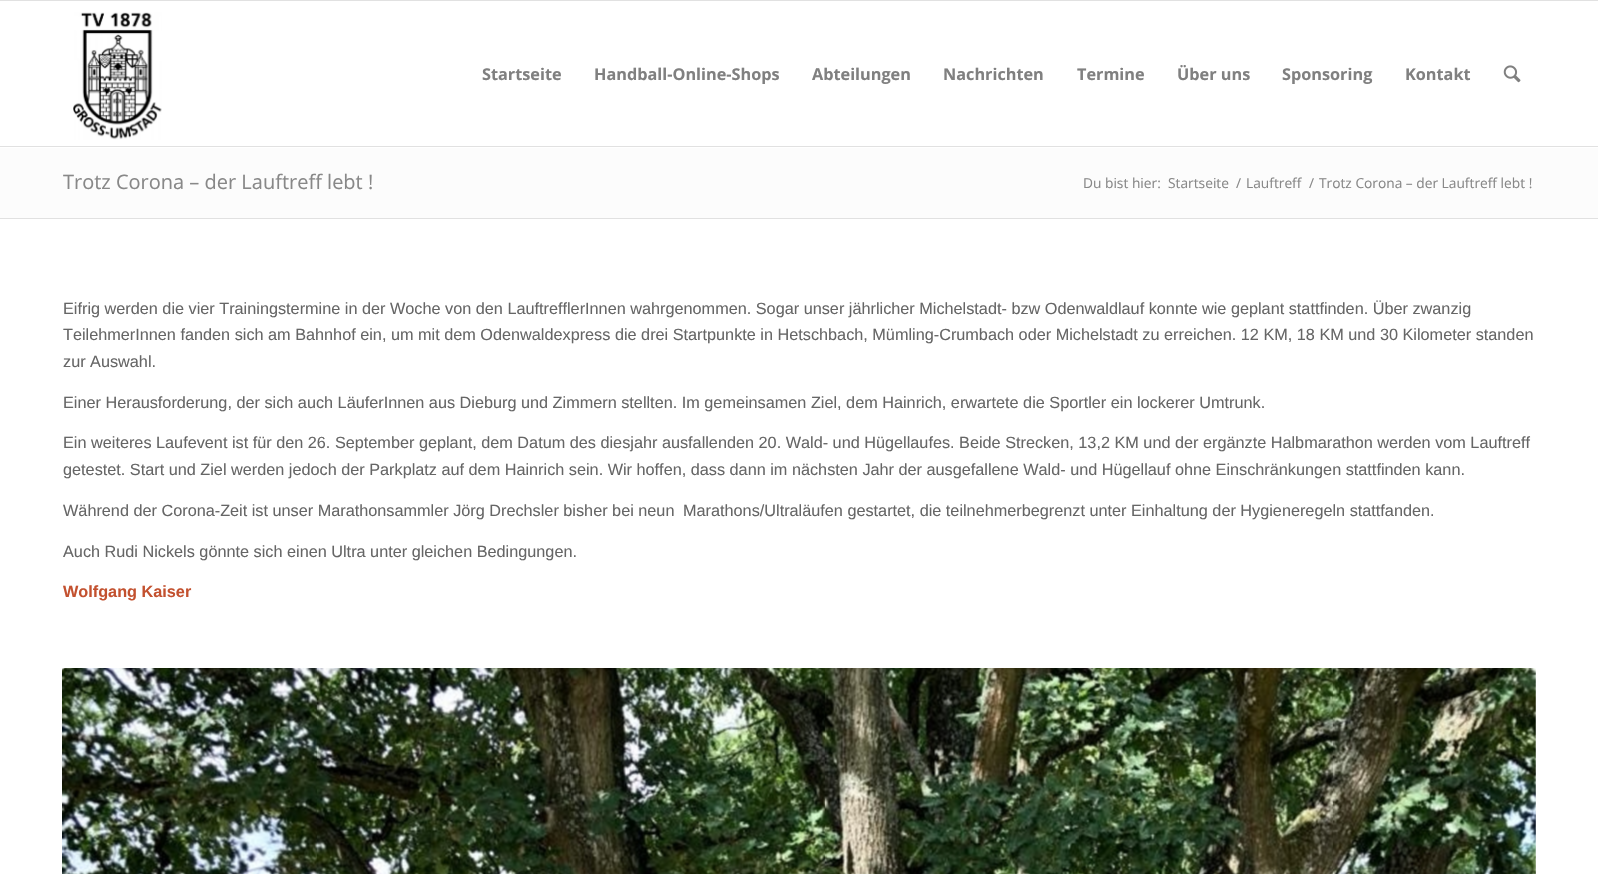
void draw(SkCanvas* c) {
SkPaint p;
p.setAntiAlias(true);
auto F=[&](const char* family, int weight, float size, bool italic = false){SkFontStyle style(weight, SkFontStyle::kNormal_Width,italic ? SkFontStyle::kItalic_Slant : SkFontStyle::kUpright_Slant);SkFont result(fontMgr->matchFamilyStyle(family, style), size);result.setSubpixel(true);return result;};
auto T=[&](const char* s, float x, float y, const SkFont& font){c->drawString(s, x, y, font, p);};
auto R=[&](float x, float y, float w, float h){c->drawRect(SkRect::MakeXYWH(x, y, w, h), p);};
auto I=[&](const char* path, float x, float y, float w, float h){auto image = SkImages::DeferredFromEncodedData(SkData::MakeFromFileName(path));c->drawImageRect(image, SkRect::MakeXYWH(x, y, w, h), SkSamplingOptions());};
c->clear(0xffffffff);
p.setColor(0xffe1e1e1);
R(0,0,1598,1);
R(0,146,1598,1);
I("1.png",73,12,89,128);
auto f1 = F("Open Sans",700,16.25);
p.setColor(0xff808080);
T("Startseite",482,80,f1);
T("Handball-Online-Shops",594,80,f1);
T("Abteilungen",812,80,f1);
T("Nachrichten",943,80,f1);
T("Termine",1077,80,f1);
T("Über uns",1177,80,f1);
T("Sponsoring",1282,80,f1);
T("Kontakt",1405,80,f1);
I("2.png",1503,65,18,18);
p.setColor(0xfffcfcfc);
R(0,148,1598,70);
auto f2 = F("Open Sans",400,20);
p.setColor(0xff888888);
T("Trotz Corona – der Lauftreff lebt !",63,189,f2);
auto f3 = F("Open Sans",400,13.75);
T("Du bist hier:",1083,188,f3);
T("Startseite",1168,188,f3);
T("/",1236,188,f3);
T("Lauftreff",1246,188,f3);
T("/",1309,188,f3);
T("Trotz Corona – der Lauftreff lebt !",1319,188,f3);
p.setColor(0xffe1e1e1);
R(0,218,1598,1);
auto f4 = F("Liberation Sans",400,16.25);
p.setColor(0xff666666);
T("Eifrig werden die vier Trainingstermine in der Woche von den LauftrefflerInnen wahrgenommen. Sogar unser jährlicher Michelstadt- bzw Odenwaldlauf konnte wie geplant stattfinden. Über zwanzig",63,314,f4);
T("TeilehmerInnen fanden sich am Bahnhof ein, um mit dem Odenwaldexpress die drei Startpunkte in Hetschbach, Mümling-Crumbach oder Michelstadt zu erreichen. 12 KM, 18 KM und 30 Kilometer standen",63,340,f4);
T("zur Auswahl.",63,367,f4);
T("Einer Herausforderung, der sich auch LäuferInnen aus Dieburg und Zimmern stellten. Im gemeinsamen Ziel, dem Hainrich, erwartete die Sportler ein lockerer Umtrunk.",63,408,f4);
T("Ein weiteres Laufevent ist für den 26. September geplant, dem Datum des diesjahr ausfallenden 20. Wald- und Hügellaufes. Beide Strecken, 13,2 KM und der ergänzte Halbmarathon werden vom Lauftreff",63,448,f4);
T("getestet. Start und Ziel werden jedoch der Parkplatz auf dem Hainrich sein. Wir hoffen, dass dann im nächsten Jahr der ausgefallene Wald- und Hügellauf ohne Einschränkungen stattfinden kann.",63,475,f4);
T("Während der Corona-Zeit ist unser Marathonsammler Jörg Drechsler bisher bei neun",63,516,f4);
T("Marathons/Ultraläufen gestartet, die teilnehmerbegrenzt unter Einhaltung der Hygieneregeln stattfanden.",683,516,f4);
T("Auch Rudi Nickels gönnte sich einen Ultra unter gleichen Bedingungen.",63,557,f4);
auto f5 = F("Liberation Sans",700,16.25);
p.setColor(0xffc3512f);
T("Wolfgang Kaiser",63,597,f5);
I("3.png",62,668,1474,206);
}
